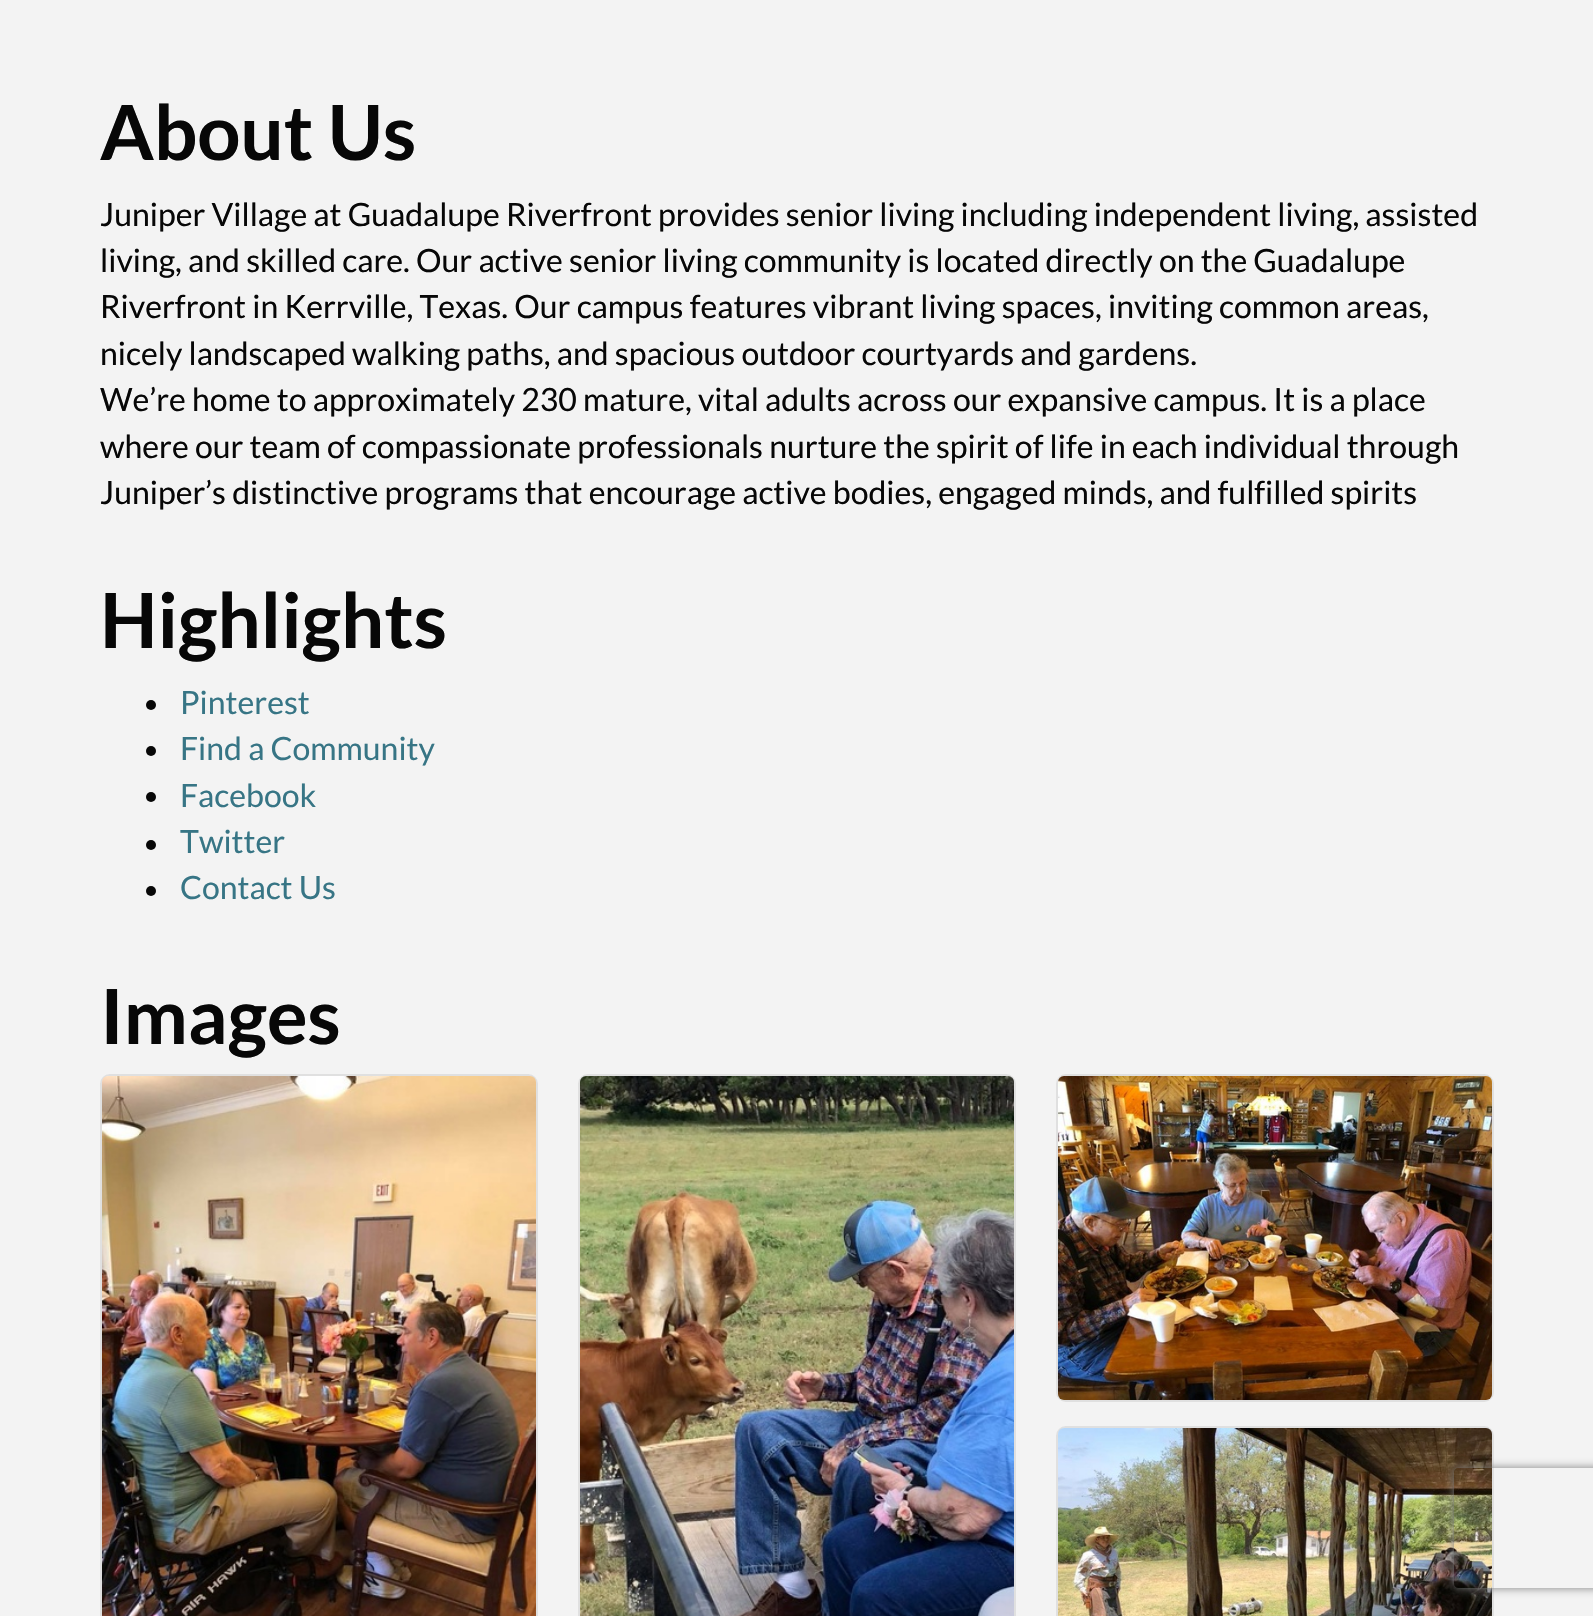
void draw(SkCanvas* c) {
SkPaint p;
p.setAntiAlias(true);
auto F=[&](const char* family, int weight, float size, bool italic = false){SkFontStyle style(weight, SkFontStyle::kNormal_Width,italic ? SkFontStyle::kItalic_Slant : SkFontStyle::kUpright_Slant);SkFont result(fontMgr->matchFamilyStyle(family, style), size);result.setSubpixel(true);return result;};
auto T=[&](const char* s, float x, float y, const SkFont& font){c->drawString(s, x, y, font, p);};
auto Q=[&](float x, float y, float w, float h, float radius){c->drawRoundRect(SkRect::MakeXYWH(x, y, w, h), radius, radius, p);};
auto I=[&](const char* path, float x, float y, float w, float h){auto image = SkImages::DeferredFromEncodedData(SkData::MakeFromFileName(path));c->drawImageRect(image, SkRect::MakeXYWH(x, y, w, h), SkSamplingOptions());};
auto P=[&](const char* data, bool evenOdd = false){SkPath result = *SkParsePath::FromSVGString(data);if (evenOdd) result.setFillType(SkPathFillType::kEvenOdd);return result;};
c->clear(0xfff3f3f3);
auto f1 = F("Lato",700,76);
p.setColor(0xff070707);
T("About Us",100,160,f1);
auto f2 = F("Lato",400,32);
T("Juniper Village at Guadalupe Riverfront provides senior living including independent living, assisted",100,226,f2);
T("living, and skilled care. Our active senior living community is located directly on the Guadalupe",100,272,f2);
T("Riverfront in Kerrville, Texas. Our campus features vibrant living spaces, inviting common areas,",100,318,f2);
T("nicely landscaped walking paths, and spacious outdoor courtyards and gardens.",100,365,f2);
T("We’re home to approximately 230 mature, vital adults across our expansive campus. It is a place",100,411,f2);
T("where our team of compassionate professionals nurture the spirit of life in each individual through",100,458,f2);
T("Juniper’s distinctive programs that encourage active bodies, engaged minds, and fulfilled spirits",100,504,f2);
T("Highlights",100,648,f1);
c->drawCircle(151,705,5,p);
p.setColor(0xff377585);
T("Pinterest",180,714,f2);
p.setColor(0xff070707);
c->drawCircle(151,751,5,p);
p.setColor(0xff377585);
T("Find a Community",180,760,f2);
p.setColor(0xff070707);
c->drawCircle(151,797,5,p);
p.setColor(0xff377585);
T("Facebook",180,807,f2);
p.setColor(0xff070707);
c->drawCircle(151,845,5,p);
p.setColor(0xff377585);
T("Twitter",180,853,f2);
p.setColor(0xff070707);
c->drawCircle(151,891,5,p);
p.setColor(0xff377585);
T("Contact Us",180,899,f2);
p.setColor(0xff070707);
T("Images",100,1044,f1);
p.setColor(0xffffffff);
Q(100,1074,438,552,10);
p.setStroke(true);
p.setStrokeWidth(2);
p.setColor(0x1f000000);
c->drawRoundRect(SkRect::MakeXYWH(101,1075,436,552),9,9,p);
I("1.png",102,1076,434,540);
p.setStroke(false);
p.setColor(0xffffffff);
Q(578,1074,438,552,10);
p.setStroke(true);
p.setColor(0x1f000000);
c->drawRoundRect(SkRect::MakeXYWH(579,1075,436,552),9,9,p);
I("2.png",580,1076,434,540);
p.setStroke(false);
p.setColor(0xffffffff);
Q(1056,1074,438,328,10);
p.setStroke(true);
p.setColor(0x1f000000);
c->drawRoundRect(SkRect::MakeXYWH(1057,1075,436,326),9,9,p);
I("3.png",1058,1076,434,324);
p.setStroke(false);
p.setColor(0xffffffff);
Q(1056,1426,438,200,10);
p.setStroke(true);
p.setColor(0x1f000000);
c->drawRoundRect(SkRect::MakeXYWH(1057,1427,436,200),9,9,p);
I("4.png",1058,1428,434,188);
c->save();
c->clipPath(P("M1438 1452h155v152h-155zm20 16h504c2 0 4 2 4 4v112c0 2-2 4-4 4h-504c-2 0-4-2-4-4v-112c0-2 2-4 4-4z",true),true);
p.setStroke(false);
p.setColor(0xff808080);
p.setMaskFilter(SkMaskFilter::MakeBlur(kNormal_SkBlurStyle, 5));
c->drawRoundRect(SkRect::MakeXYWH(1454,1468,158,120),4,4,p);
p.setMaskFilter(nullptr);
c->restore();
}
